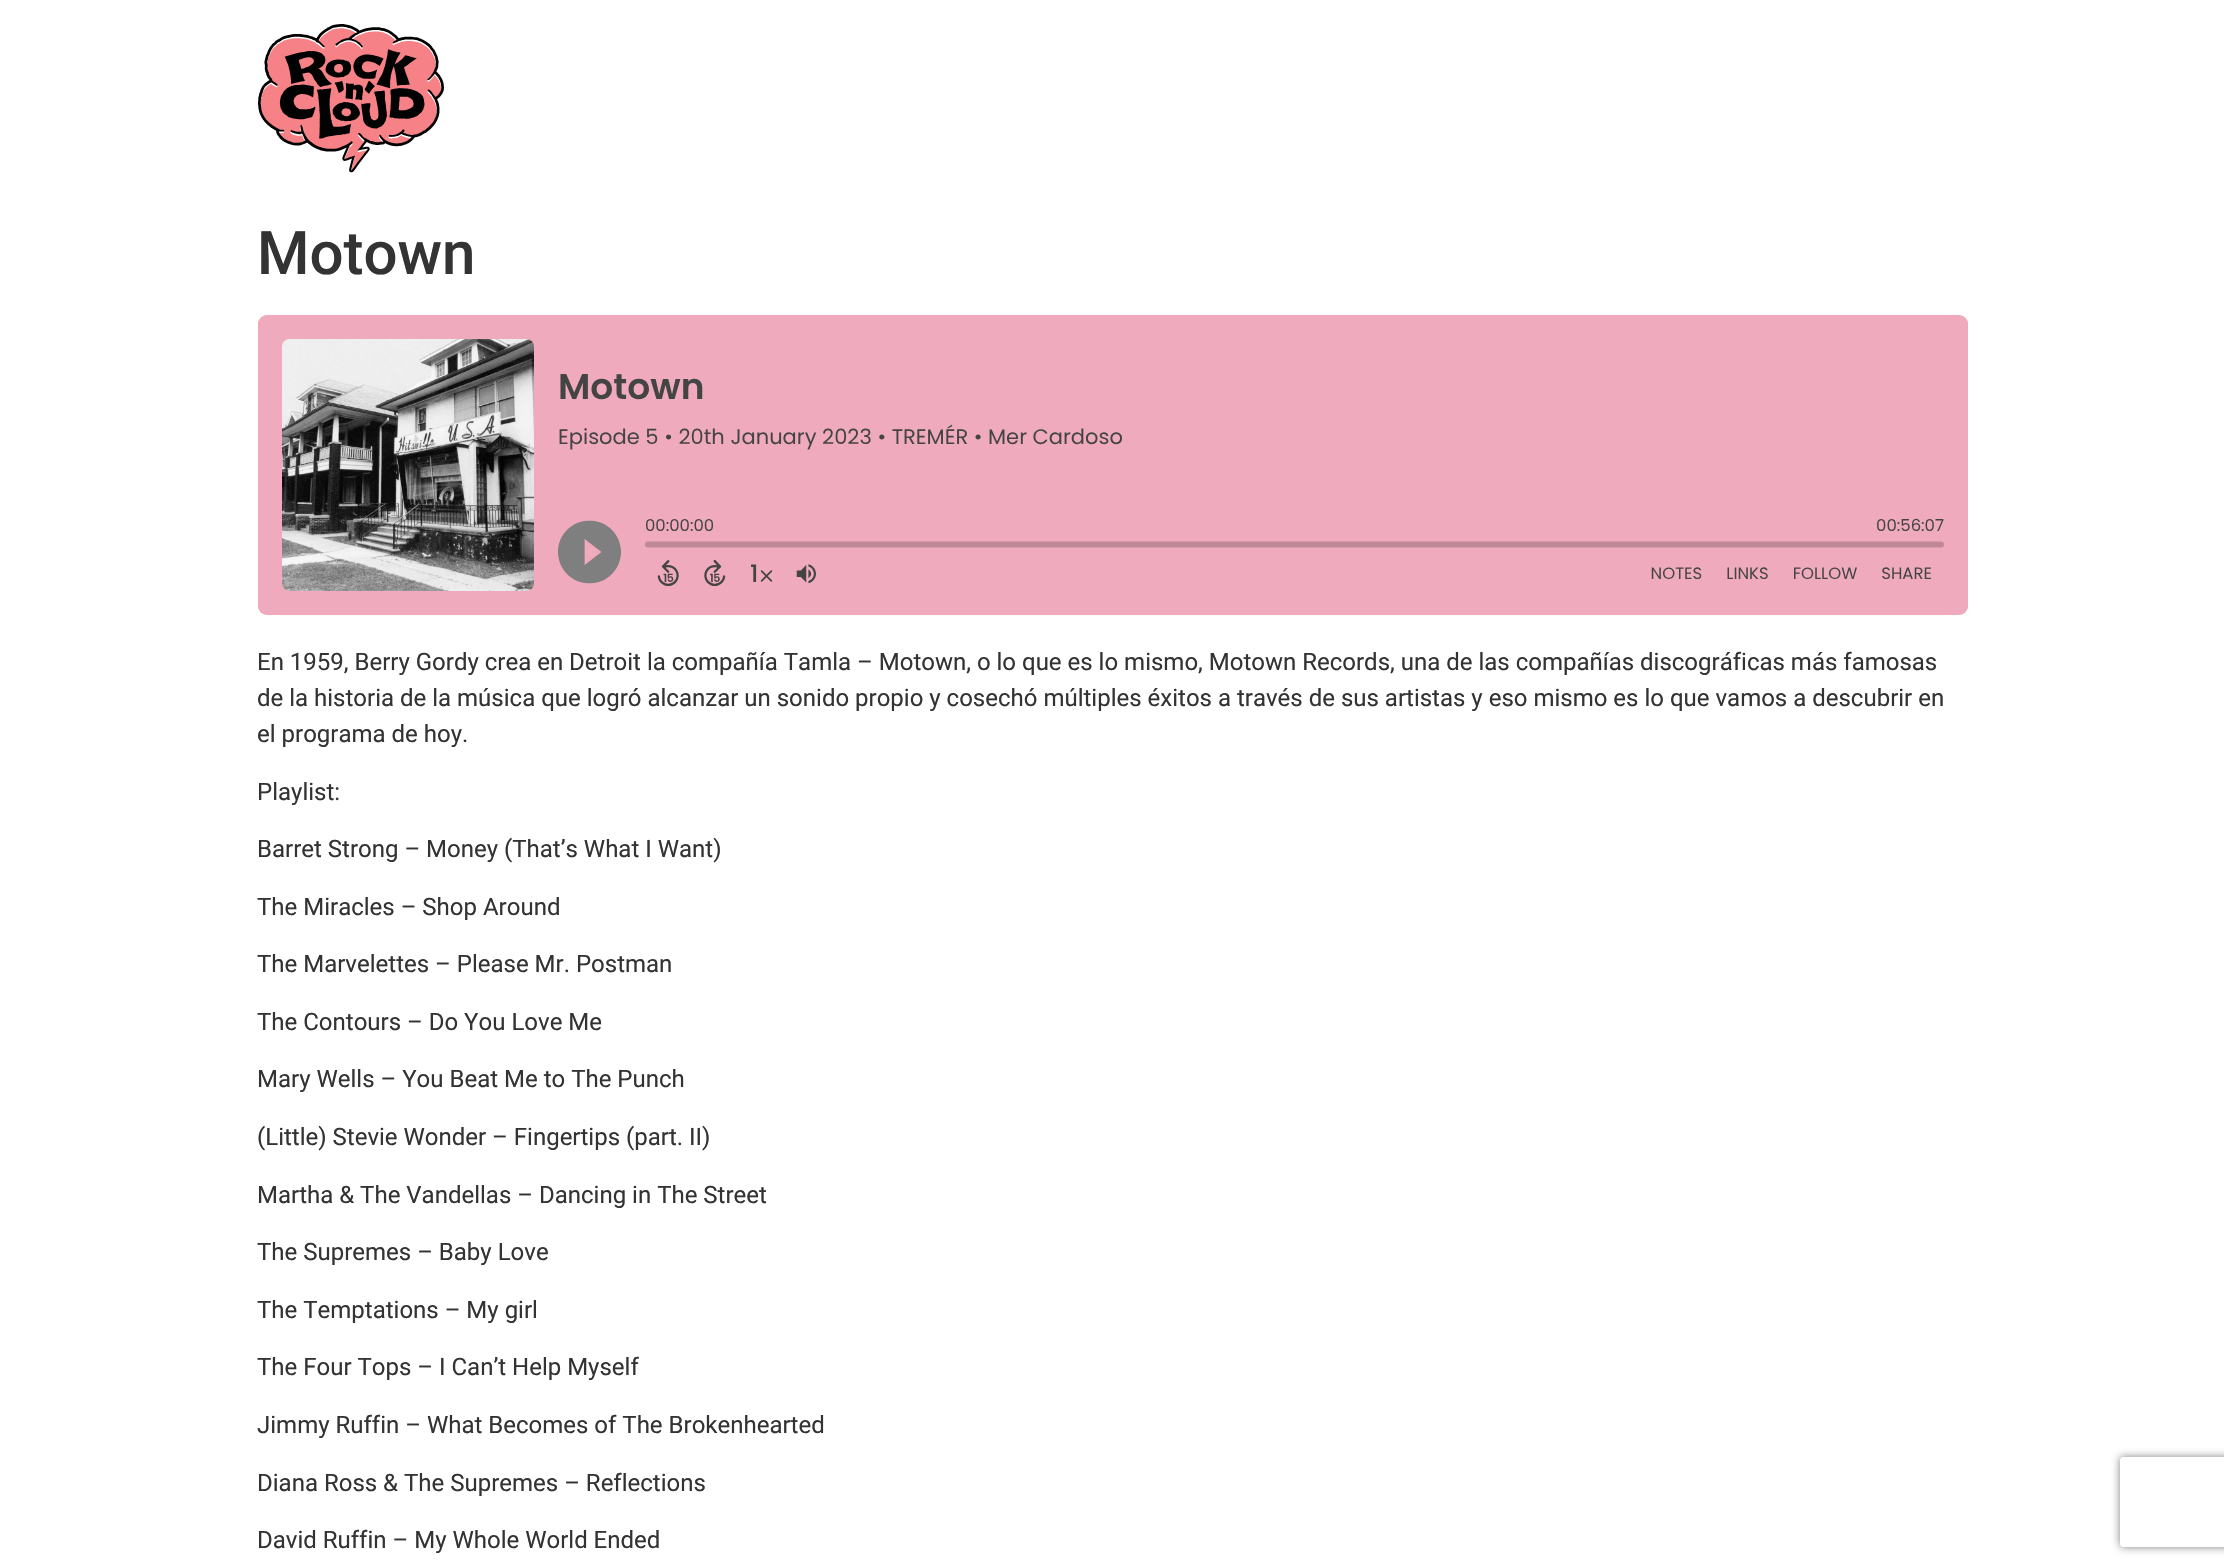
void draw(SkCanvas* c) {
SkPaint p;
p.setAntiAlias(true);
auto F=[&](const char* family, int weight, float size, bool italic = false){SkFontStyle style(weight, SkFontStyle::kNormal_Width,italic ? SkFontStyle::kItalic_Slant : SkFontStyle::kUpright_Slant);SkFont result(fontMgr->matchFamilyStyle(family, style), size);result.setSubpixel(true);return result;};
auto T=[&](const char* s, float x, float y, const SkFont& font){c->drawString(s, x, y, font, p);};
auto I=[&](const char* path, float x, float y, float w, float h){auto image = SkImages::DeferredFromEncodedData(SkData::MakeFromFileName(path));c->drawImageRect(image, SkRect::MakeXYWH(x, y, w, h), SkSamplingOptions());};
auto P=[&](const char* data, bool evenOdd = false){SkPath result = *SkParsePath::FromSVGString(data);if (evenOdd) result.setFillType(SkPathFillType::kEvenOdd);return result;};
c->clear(0xffffffff);
I("1.png",258,24,186,149);
auto f1 = F("Roboto",500,60);
p.setColor(0xff333333);
T("Motown",257,274,f1);
I("2.png",258,315,1710,300);
auto f2 = F("Roboto",400,24);
T("En 1959, Berry Gordy crea en Detroit la compañía Tamla – Motown, o lo que es lo mismo, Motown Records, una de las compañías discográficas más famosas",257,670,f2);
T("de la historia de la música que logró alcanzar un sonido propio y cosechó múltiples éxitos a través de sus artistas y eso mismo es lo que vamos a descubrir en",257,706,f2);
T("el programa de hoy.",257,742,f2);
T("Playlist:",257,800,f2);
T("Barret Strong – Money (That’s What I Want)",257,857,f2);
T("The Miracles – Shop Around",257,915,f2);
T("The Marvelettes – Please Mr. Postman",257,972,f2);
T("The Contours – Do You Love Me",257,1030,f2);
T("Mary Wells – You Beat Me to The Punch",257,1087,f2);
T("(Little) Stevie Wonder – Fingertips (part. II)",257,1145,f2);
T("Martha & The Vandellas – Dancing in The Street",257,1203,f2);
T("The Supremes – Baby Love",257,1260,f2);
T("The Temptations – My girl",257,1318,f2);
T("The Four Tops – I Can’t Help Myself",257,1375,f2);
T("Jimmy Ruffin – What Becomes of The Brokenhearted",257,1433,f2);
T("Diana Ross & The Supremes – Reflections",257,1491,f2);
T("David Ruffin – My Whole World Ended",257,1548,f2);
c->save();
c->clipPath(P("M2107 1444h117v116h-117zm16 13h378c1.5 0 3 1.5 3 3v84c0 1.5-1.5 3-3 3h-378c-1.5 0-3-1.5-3-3v-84c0-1.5 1.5-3 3-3z",true),true);
p.setColor(0xff808080);
p.setMaskFilter(SkMaskFilter::MakeBlur(kNormal_SkBlurStyle, 4));
c->drawRoundRect(SkRect::MakeXYWH(2120,1457,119,90),3,3,p);
p.setMaskFilter(nullptr);
c->restore();
}
